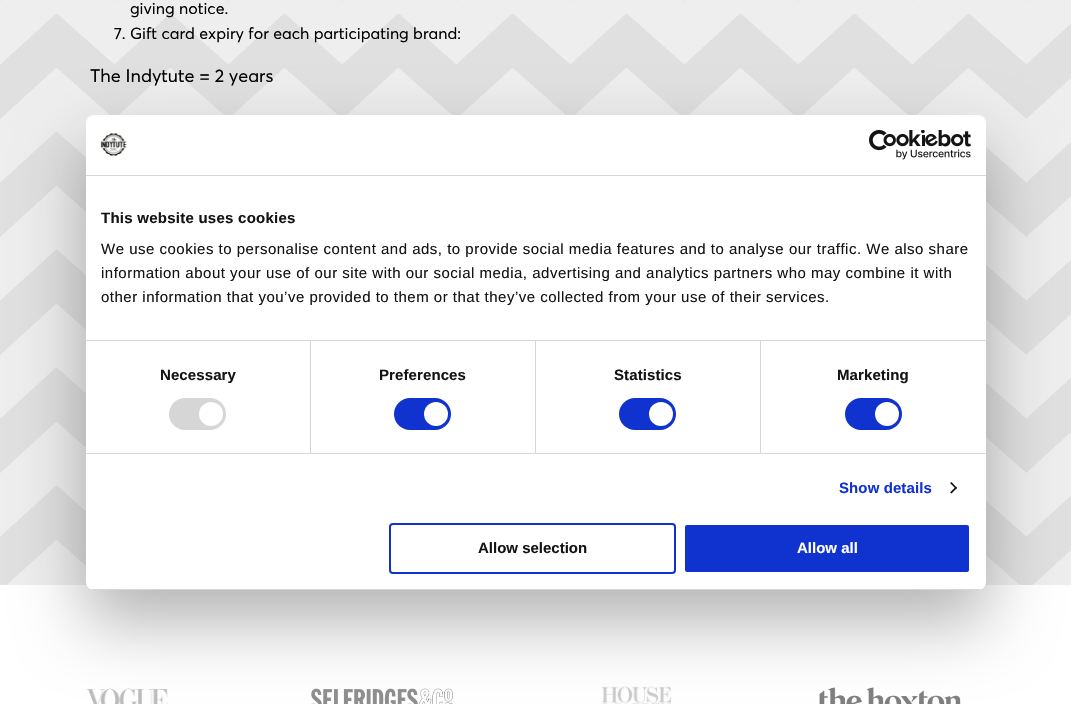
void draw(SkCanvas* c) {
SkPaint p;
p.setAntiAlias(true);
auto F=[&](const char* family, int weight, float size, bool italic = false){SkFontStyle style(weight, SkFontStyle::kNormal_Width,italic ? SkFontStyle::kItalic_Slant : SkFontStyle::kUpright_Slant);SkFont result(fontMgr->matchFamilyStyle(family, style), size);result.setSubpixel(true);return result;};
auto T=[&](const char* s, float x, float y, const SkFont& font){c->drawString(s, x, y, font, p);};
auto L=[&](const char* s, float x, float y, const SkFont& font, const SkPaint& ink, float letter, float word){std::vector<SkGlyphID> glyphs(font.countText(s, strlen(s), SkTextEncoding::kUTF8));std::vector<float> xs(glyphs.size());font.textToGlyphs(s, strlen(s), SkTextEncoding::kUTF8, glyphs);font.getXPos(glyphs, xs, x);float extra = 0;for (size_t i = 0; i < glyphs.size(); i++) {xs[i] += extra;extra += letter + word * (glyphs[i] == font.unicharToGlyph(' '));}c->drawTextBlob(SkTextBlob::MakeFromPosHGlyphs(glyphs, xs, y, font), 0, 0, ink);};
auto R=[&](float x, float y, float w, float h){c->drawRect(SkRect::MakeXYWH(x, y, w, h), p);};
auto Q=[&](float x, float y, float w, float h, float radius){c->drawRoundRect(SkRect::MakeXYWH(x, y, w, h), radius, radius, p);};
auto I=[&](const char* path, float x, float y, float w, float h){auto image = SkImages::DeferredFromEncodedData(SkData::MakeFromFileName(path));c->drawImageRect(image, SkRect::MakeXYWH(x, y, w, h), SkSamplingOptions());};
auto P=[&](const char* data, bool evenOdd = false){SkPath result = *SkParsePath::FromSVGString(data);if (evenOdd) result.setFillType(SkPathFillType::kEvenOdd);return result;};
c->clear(0xffffffff);
I("1.png",0,0,1071,585);
auto f1 = F("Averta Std",400,16);
p.setColor(0xff000000);
T("giving notice.",130,14,f1);
T("7. Gift card expiry for each participating brand:",114,39,f1);
auto f2 = F("Averta Std",400,18);
T("The Indytute = 2 years",90,82,f2);
I("4.png",86,688,82,16);
I("5.png",311,688,142,16);
I("6.png",601,686,70,18);
I("7.png",819,687,142,17);
p.setColor(0x4d000000);
p.setMaskFilter(SkMaskFilter::MakeBlur(kNormal_SkBlurStyle, 34));
c->drawRoundRect(SkRect::MakeXYWH(86,147,900,475),8,8,p);
p.setMaskFilter(nullptr);
p.setColor(0xffffffff);
Q(86,115,900,475,8);
p.setColor(0xffd6d6d6);
R(86,175,900,1);
I("2.png",100,133,27,23);
I("3.png",869,130,102,30);
R(86,340,900,1);
auto f3 = F("Liberation Sans",700,15);
p.setColor(0xff141414);
L("This website uses cookies",101,223,f3,p,.25,0);
auto f4 = F("Liberation Sans",400,15);
L("We use cookies to personalise content and ads, to provide social media features and to analyse our traffic. We also share",101,254,f4,p,.5,0);
L("information about your use of our site with our social media, advertising and analytics partners who may combine it with",101,278,f4,p,.5,0);
L("other information that you’ve provided to them or that they’ve collected from your use of their services.",101,302,f4,p,.5,0);
p.setColor(0xffd6d6d6);
R(86,453,900,1);
R(310,341,1,112);
p.setColor(0xff141414);
L("Necessary",160,380,f3,p,.1,0);
p.setColor(0xffd6d6d6);
Q(169,398,57,32,16);
p.setColor(0xffffffff);
c->drawCircle(211,414,12,p);
p.setColor(0xffd6d6d6);
R(535,341,1,112);
p.setColor(0xff141414);
L("Preferences",379,380,f3,p,.1,0);
p.setColor(0xff1032cf);
Q(394,398,57,32,16);
p.setColor(0xffffffff);
c->drawCircle(436,414,12,p);
p.setColor(0xffd6d6d6);
R(760,341,1,112);
p.setColor(0xff141414);
L("Statistics",614,380,f3,p,.1,0);
p.setColor(0xff1032cf);
Q(619,398,57,32,16);
p.setColor(0xffffffff);
c->drawCircle(661,414,12,p);
p.setColor(0xff141414);
L("Marketing",837,380,f3,p,.1,0);
p.setColor(0xff1032cf);
Q(845,398,57,32,16);
p.setColor(0xffffffff);
c->drawCircle(887,414,12,p);
p.setColor(0xff1032cf);
L("Show details",839,493,f3,p,.1,0);
p.setColor(0xff141414);
c->drawPath(P("M951.5 482l5.5 6l-1 1l-6-6z"),p);
c->drawPath(P("M956 486.5l1 1.5l-5.5 5.5l-1.5-1z"),p);
c->save();
c->clipPath(P("M94 115h884c4.5 0 8 3.5 8 8v459c0 4.5-3.5 8-8 8h-884c-4.5 0-8-3.5-8-8v-459c0-4.5 3.5-8 8-8z"),true);
p.setColor(0xffd6d6d6);
R(86,589,900,1);
c->restore();
p.setStroke(true);
p.setStrokeWidth(2);
p.setColor(0xff1032cf);
c->drawRoundRect(SkRect::MakeXYWH(390,524,285,49),3,3,p);
p.setStroke(false);
p.setColor(0xff141414);
T("Allow selection",478,553,f3);
p.setColor(0xff1032cf);
c->drawRoundRect(SkRect::MakeXYWH(684,524,286,49),3,3,p);
p.setStroke(true);
p.setColor(0xffffffff);
c->drawRoundRect(SkRect::MakeXYWH(684,524,286,49),3,3,p);
p.setStroke(false);
T("Allow all",797,553,f3);
}
